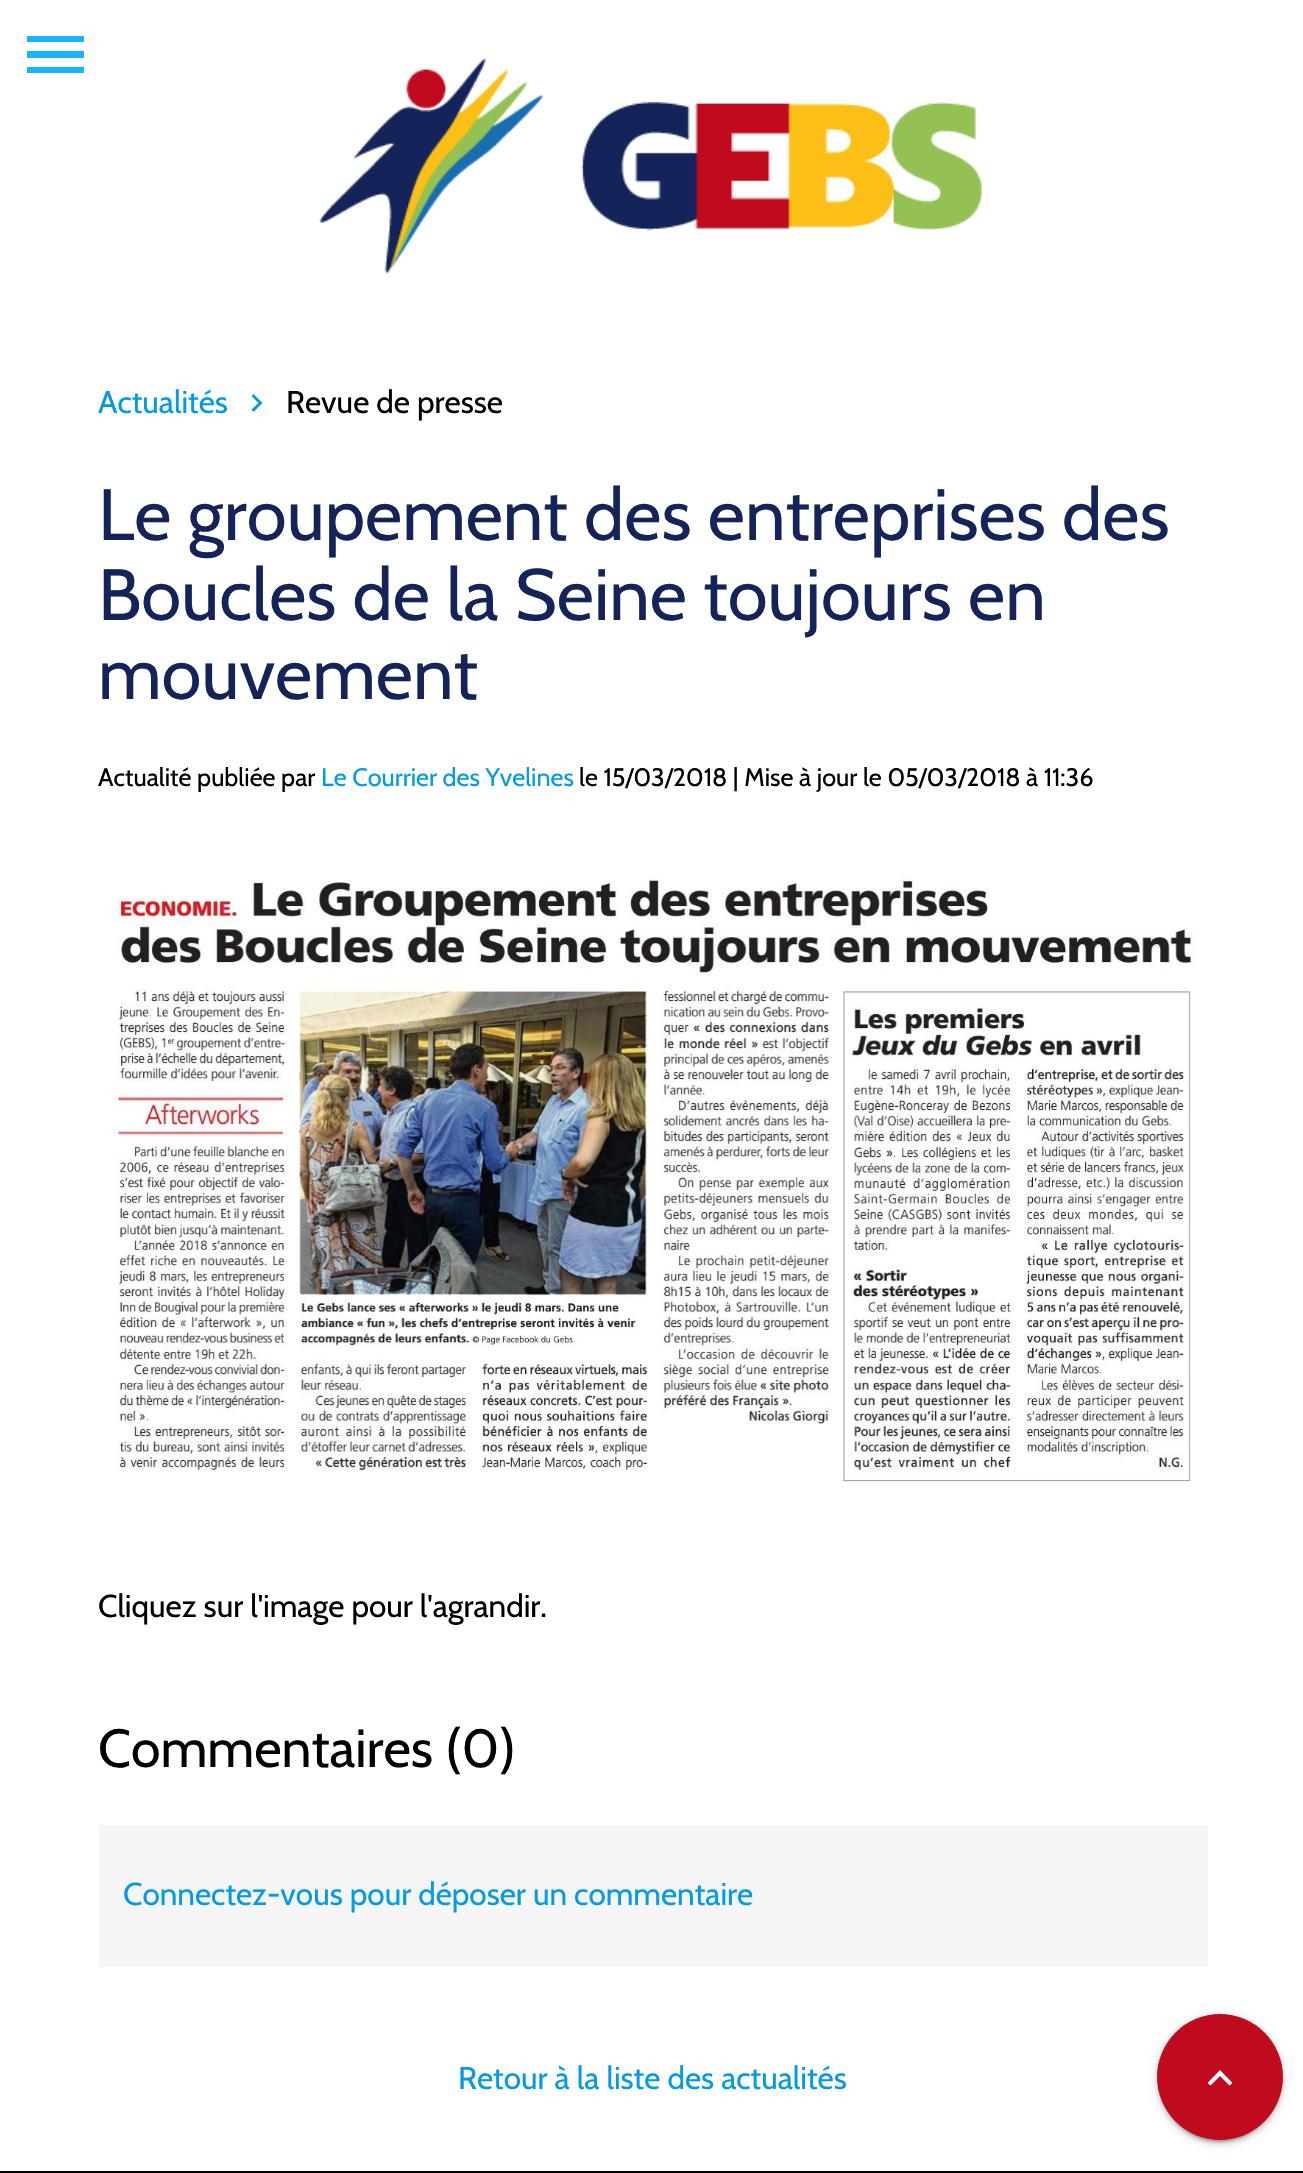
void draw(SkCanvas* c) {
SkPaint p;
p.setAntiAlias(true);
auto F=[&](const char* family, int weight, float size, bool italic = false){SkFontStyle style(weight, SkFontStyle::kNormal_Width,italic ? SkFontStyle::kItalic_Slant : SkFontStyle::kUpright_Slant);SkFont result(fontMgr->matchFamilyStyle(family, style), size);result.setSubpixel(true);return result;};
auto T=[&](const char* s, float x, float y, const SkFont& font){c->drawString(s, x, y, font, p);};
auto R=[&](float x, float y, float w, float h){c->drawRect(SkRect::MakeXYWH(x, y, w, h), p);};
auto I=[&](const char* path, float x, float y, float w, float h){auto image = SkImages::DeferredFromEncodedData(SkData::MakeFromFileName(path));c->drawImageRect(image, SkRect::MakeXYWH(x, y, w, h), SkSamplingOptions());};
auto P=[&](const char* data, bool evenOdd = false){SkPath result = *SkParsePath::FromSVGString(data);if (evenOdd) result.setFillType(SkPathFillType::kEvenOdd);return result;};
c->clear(0xffffffff);
p.setColor(0xff19b4ff);
c->drawPath(P("M27 36h57v6h-57zm0 22v-7h57v7zm0 15v-6h57v6z"),p);
I("1.png",319,58,664,216);
auto f1 = F("Cabin",400,31.5);
p.setColor(0xff039be5);
T("Actualités",98,413,f1);
c->drawPath(P("M253.5 394l9 9l-9 9l-2-2.5l7-6.5l-7-7z"),p);
p.setColor(0xff000000);
T("Revue de presse",286,413,f1);
auto f2 = F("Cabin",400,72.5);
p.setColor(0xff14245a);
T("Le groupement des entreprises des",98,540,f2);
T("Boucles de la Seine toujours en",98,620,f2);
T("mouvement",98,699,f2);
auto f3 = F("Cabin",400,25.2);
p.setColor(0xff000000);
T("Actualité publiée par",98,786,f3);
p.setColor(0xff039be5);
T("Le Courrier des Yvelines",321,786,f3);
p.setColor(0xff000000);
T("le 15/03/2018 | Mise à jour le 05/03/2018 à 11:36",579,786,f3);
I("2.png",110,877,1086,605);
T("Cliquez sur l'image pour l'agrandir.",98,1617,f1);
auto f4 = F("Cabin",400,53.5);
T("Commentaires (0)",98,1767,f4);
p.setColor(0xfff5f5f5);
R(99,1825,1109,142);
p.setColor(0xff039be5);
T("Connectez-vous pour déposer un commentaire",123,1905,f1);
T("Retour à la liste des actualités",458,2089,f1);
p.setColor(0x33000000);
p.setMaskFilter(SkMaskFilter::MakeBlur(kNormal_SkBlurStyle, 1));
c->drawRoundRect(SkRect::MakeXYWH(1161,2025,117,117),58.5,58.5,p);
p.setMaskFilter(nullptr);
p.setColor(0x1f000000);
p.setMaskFilter(SkMaskFilter::MakeBlur(kNormal_SkBlurStyle, 5.5));
c->drawRoundRect(SkRect::MakeXYWH(1157,2016,126,126),63,63,p);
p.setMaskFilter(nullptr);
p.setColor(0x24000000);
p.setMaskFilter(SkMaskFilter::MakeBlur(kNormal_SkBlurStyle, 2));
c->drawRoundRect(SkRect::MakeXYWH(1157,2018,126,126),63,63,p);
p.setMaskFilter(nullptr);
p.setColor(0xffbf0b1d);
c->drawCircle(1220,2077,63,p);
p.setColor(0xffffffff);
c->drawPath(P("M1220 2070l12.5 13l-3 2.5l-9.5-9.5l-9.5 9.5l-3-2.5z"),p);
p.setColor(0xff000000);
R(0,2171,1303,2);
}
